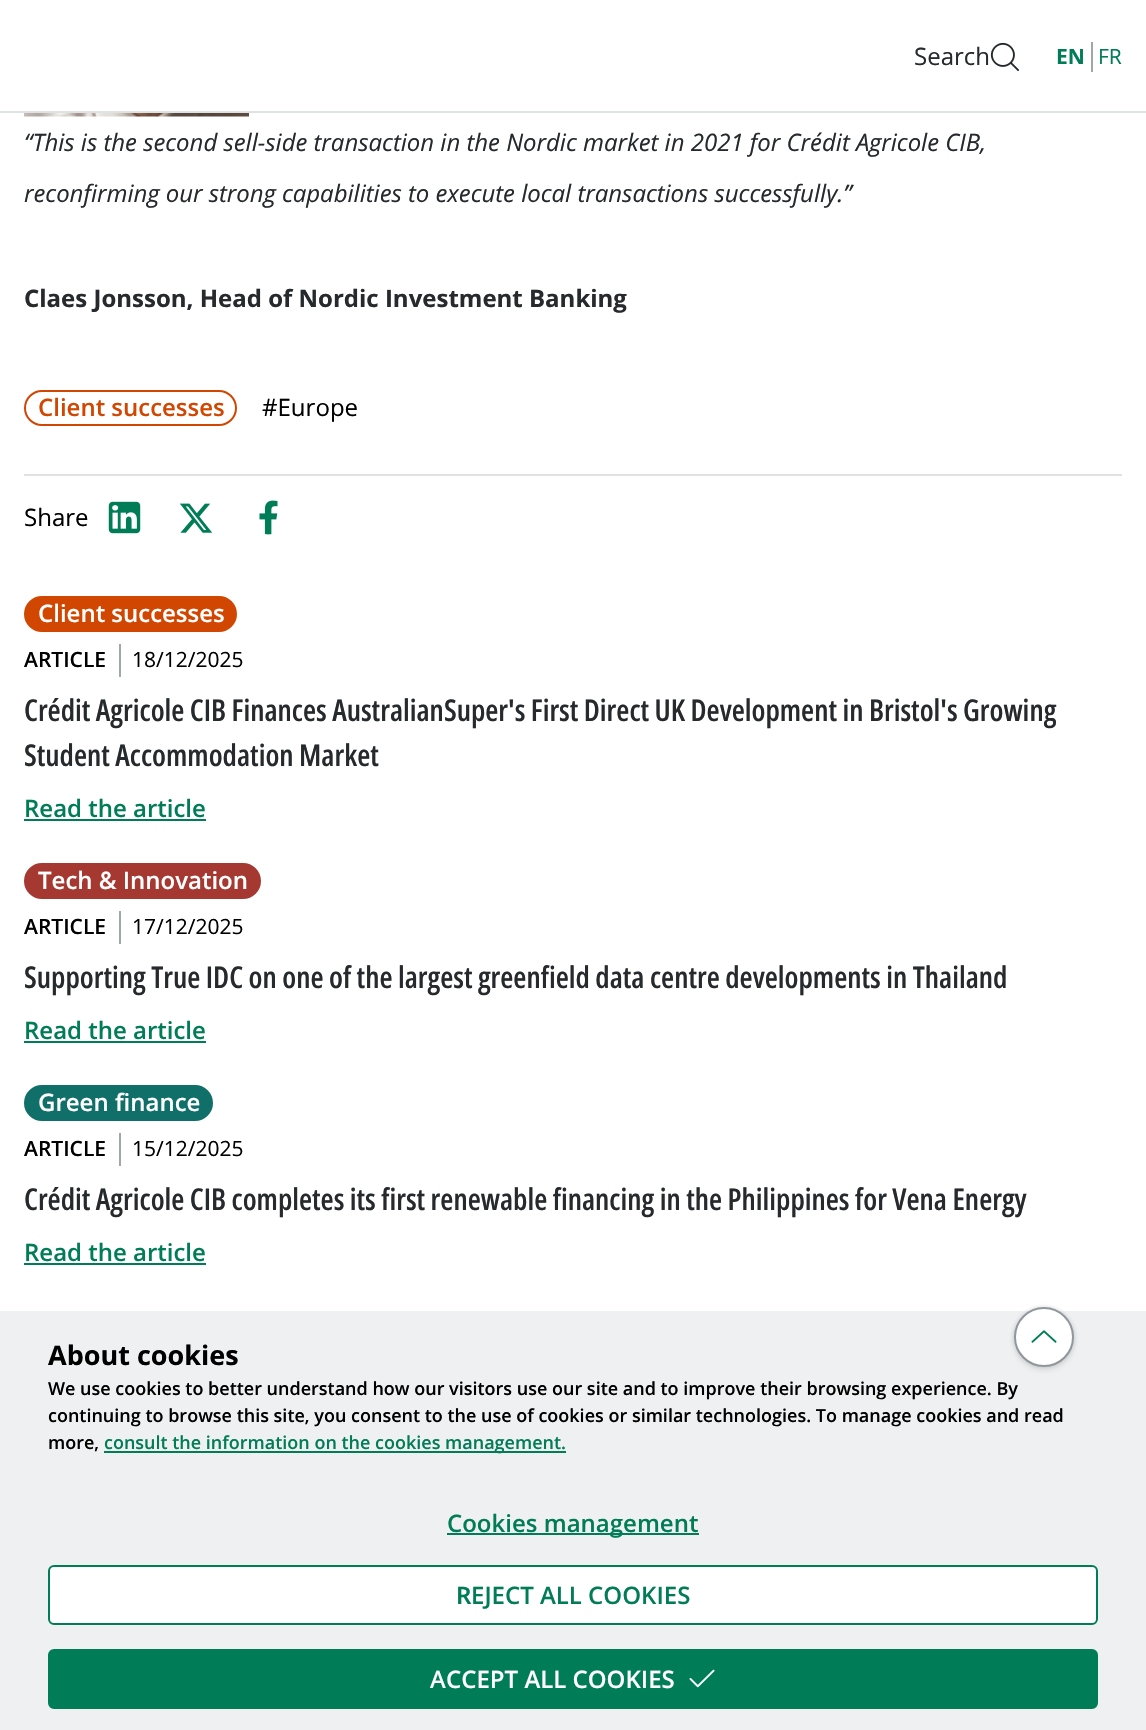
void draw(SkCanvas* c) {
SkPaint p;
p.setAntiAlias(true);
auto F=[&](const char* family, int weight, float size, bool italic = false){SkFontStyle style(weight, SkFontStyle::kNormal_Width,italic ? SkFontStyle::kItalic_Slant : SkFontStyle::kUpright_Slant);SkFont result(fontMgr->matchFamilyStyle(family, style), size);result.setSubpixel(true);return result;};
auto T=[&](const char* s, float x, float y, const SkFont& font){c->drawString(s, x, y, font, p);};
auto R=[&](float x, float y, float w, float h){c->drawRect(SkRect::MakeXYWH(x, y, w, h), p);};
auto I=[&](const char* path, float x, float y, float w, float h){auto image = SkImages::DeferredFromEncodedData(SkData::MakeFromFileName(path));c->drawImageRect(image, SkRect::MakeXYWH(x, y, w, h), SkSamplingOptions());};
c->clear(0xffffffff);
p.setColor(0xffdfe1e3);
R(0,111,1146,2);
auto f1 = F("Open Sans",400,24);
p.setColor(0xff262a2d);
T("Search",914,65,f1);
I("1.png",990,42,29,30);
auto f2 = F("Open Sans",700,21);
p.setColor(0xff007d57);
T("EN",1056,64,f2);
p.setColor(0xffa0a7ab);
R(1091,42,2,30);
auto f3 = F("Open Sans",400,21);
p.setColor(0xff007d57);
T("FR",1098,64,f3);
I("2.png",24,113,225,4);
auto f4 = F("Open Sans",400,24,true);
p.setColor(0xff262a2d);
T("“This is the second sell-side transaction in the Nordic market in 2021 for Crédit Agricole CIB,",24,151,f4);
T("reconfirming our strong capabilities to execute local transactions successfully.”",24,202,f4);
auto f5 = F("Open Sans",700,24);
T("Claes Jonsson, Head of Nordic Investment Banking",24,307,f5);
p.setStroke(true);
p.setStrokeWidth(2);
p.setColor(0xffd14600);
c->drawRoundRect(SkRect::MakeXYWH(25,391,211,34),17,17,p);
auto f6 = F("Open Sans",600,24);
p.setStroke(false);
T("Client successes",38,416,f6);
p.setColor(0xff000000);
T("#Europe",262,416,f1);
p.setColor(0xffdfe1e3);
R(24,474,1098,2);
p.setColor(0xff000000);
T("Share",24,526,f1);
I("3.png",108,501,33,33);
I("4.png",180,503,33,30);
I("5.png",259,500,19,35);
p.setColor(0xffd14600);
c->drawRoundRect(SkRect::MakeXYWH(25,597,211,34),17,17,p);
p.setStroke(true);
c->drawRoundRect(SkRect::MakeXYWH(25,597,211,34),17,17,p);
p.setStroke(false);
p.setColor(0xffffffff);
T("Client successes",38,622,f6);
auto f7 = F("Open Sans",600,21);
p.setColor(0xff000000);
T("ARTICLE",24,667,f7);
p.setColor(0xffa0a7ab);
R(119,644,2,33);
p.setColor(0xff000000);
T("18/12/2025",132,667,f3);
auto f8 = F("Open Sans Condensed",600,30);
p.setColor(0xff262a2d);
T("Crédit Agricole CIB Finances AustralianSuper's First Direct UK Development in Bristol's Growing",24,721,f8);
T("Student Accommodation Market",24,766,f8);
p.setColor(0xff007d57);
T("Read the article",24,817,f6);
R(24,819,182,2);
p.setColor(0xffa53931);
c->drawRoundRect(SkRect::MakeXYWH(25,864,235,34),17,17,p);
p.setStroke(true);
c->drawRoundRect(SkRect::MakeXYWH(25,864,235,34),17,17,p);
p.setStroke(false);
p.setColor(0xffffffff);
T("Tech & Innovation",38,889,f6);
p.setColor(0xff000000);
T("ARTICLE",24,934,f7);
p.setColor(0xffa0a7ab);
R(119,911,2,33);
p.setColor(0xff000000);
T("17/12/2025",132,934,f3);
p.setColor(0xff262a2d);
T("Supporting True IDC on one of the largest greenfield data centre developments in Thailand",24,988,f8);
p.setColor(0xff007d57);
T("Read the article",24,1039,f6);
R(24,1041,182,2);
p.setColor(0xff116f6a);
c->drawRoundRect(SkRect::MakeXYWH(25,1086,187,34),17,17,p);
p.setStroke(true);
c->drawRoundRect(SkRect::MakeXYWH(25,1086,187,34),17,17,p);
p.setStroke(false);
p.setColor(0xffffffff);
T("Green finance",38,1111,f6);
p.setColor(0xff000000);
T("ARTICLE",24,1156,f7);
p.setColor(0xffa0a7ab);
R(119,1133,2,33);
p.setColor(0xff000000);
T("15/12/2025",132,1156,f3);
p.setColor(0xff262a2d);
T("Crédit Agricole CIB completes its first renewable financing in the Philippines for Vena Energy",24,1210,f8);
p.setColor(0xff007d57);
T("Read the article",24,1261,f6);
R(24,1263,182,2);
p.setColor(0xffeff0f1);
R(0,1311,1146,419);
p.setColor(0x1a131517);
p.setMaskFilter(SkMaskFilter::MakeBlur(kNormal_SkBlurStyle, 3));
c->drawRoundRect(SkRect::MakeXYWH(1014,1310,60,60),30,30,p);
p.setMaskFilter(nullptr);
p.setColor(0x26131517);
p.setMaskFilter(SkMaskFilter::MakeBlur(kNormal_SkBlurStyle, 2));
c->drawRoundRect(SkRect::MakeXYWH(1014,1307,60,60),30,30,p);
p.setMaskFilter(nullptr);
p.setColor(0xffffffff);
c->drawCircle(1044,1337,29,p);
p.setStroke(true);
p.setColor(0xff8e979c);
c->drawCircle(1044,1337,29,p);
I("6.png",1031,1330,26,13);
auto f9 = F("Open Sans",700,27);
p.setStroke(false);
p.setColor(0xff000000);
T("About cookies",48,1365,f9);
auto f10 = F("Open Sans",600,18);
T("We use cookies to better understand how our visitors use our site and to improve their browsing experience. By",48,1395,f10);
T("continuing to browse this site, you consent to the use of cookies or similar technologies. To manage cookies and read",48,1422,f10);
T("more,",48,1449,f10);
p.setColor(0xff007d57);
R(104,1451,462,2);
T("consult the information on the cookies management.",104,1449,f10);
R(447,1533,252,2);
T("Cookies management",447,1532,f6);
p.setColor(0xffffffff);
c->drawRoundRect(SkRect::MakeXYWH(49,1566,1048,58),5,5,p);
p.setStroke(true);
p.setColor(0xff007d57);
c->drawRoundRect(SkRect::MakeXYWH(49,1566,1048,58),5,5,p);
auto f11 = F("Noto Sans",600,24);
p.setStroke(false);
T("R",456,1604,f11);
T("EJECT ALL COOKIES",471,1604,f6);
c->drawRoundRect(SkRect::MakeXYWH(49,1650,1048,58),5,5,p);
p.setStroke(true);
c->drawRoundRect(SkRect::MakeXYWH(49,1650,1048,58),5,5,p);
auto f12 = F("Noto Sans",500,24);
p.setStroke(false);
p.setColor(0xffffffff);
T("A",430,1688,f12);
T("CCEPT ALL COOKIES",446,1688,f6);
I("7.png",689,1669,26,19);
}
